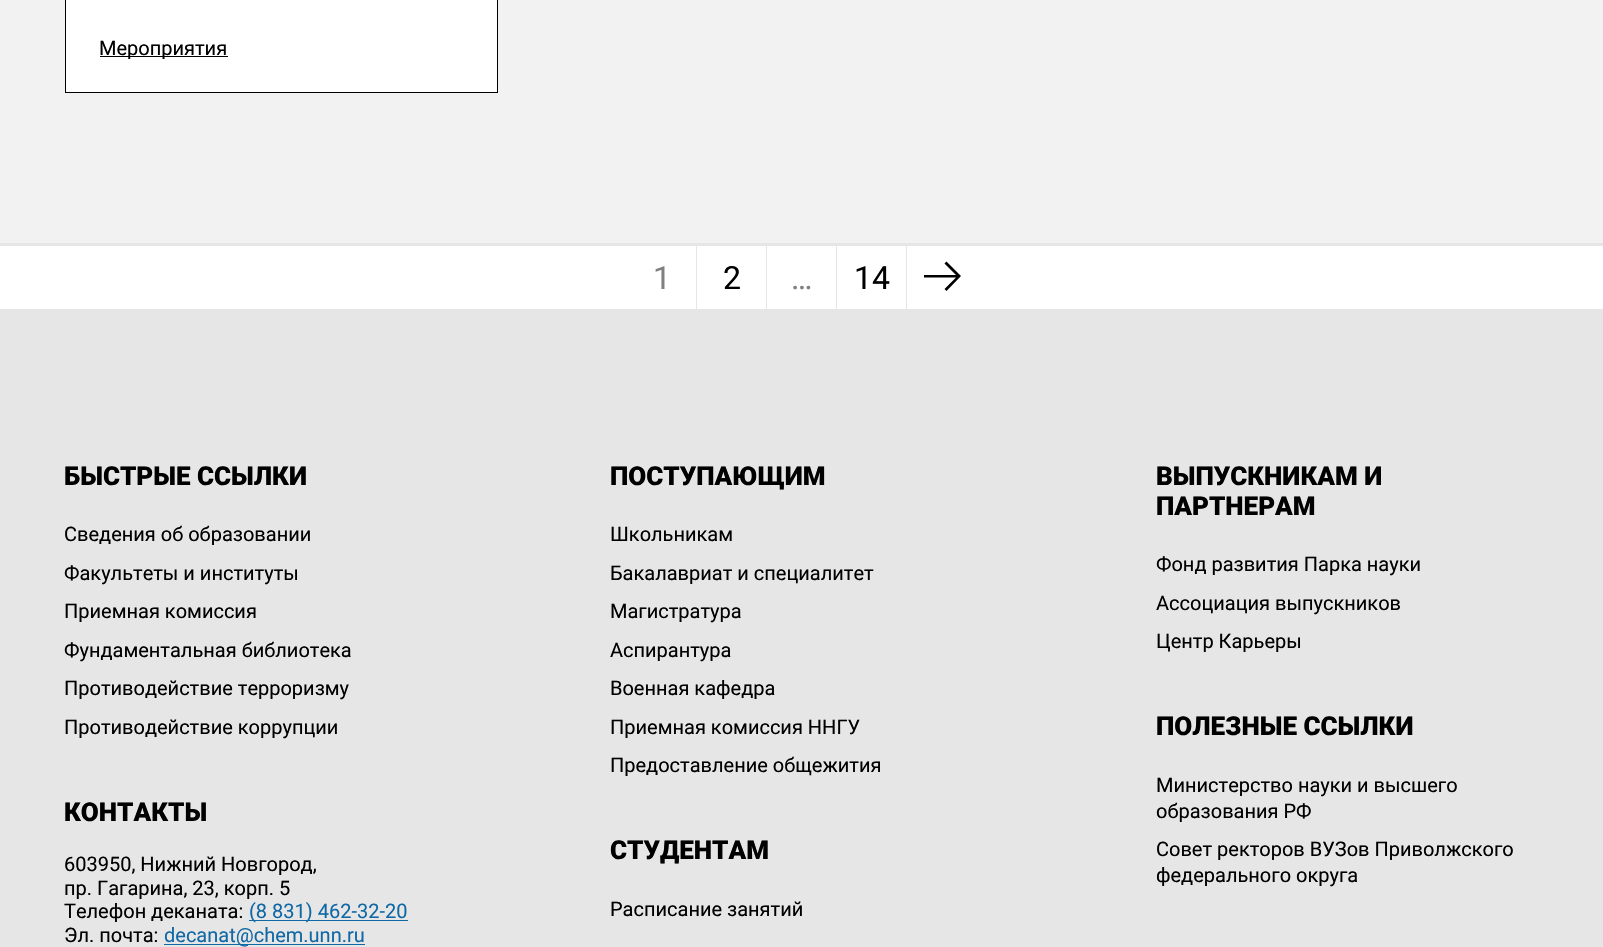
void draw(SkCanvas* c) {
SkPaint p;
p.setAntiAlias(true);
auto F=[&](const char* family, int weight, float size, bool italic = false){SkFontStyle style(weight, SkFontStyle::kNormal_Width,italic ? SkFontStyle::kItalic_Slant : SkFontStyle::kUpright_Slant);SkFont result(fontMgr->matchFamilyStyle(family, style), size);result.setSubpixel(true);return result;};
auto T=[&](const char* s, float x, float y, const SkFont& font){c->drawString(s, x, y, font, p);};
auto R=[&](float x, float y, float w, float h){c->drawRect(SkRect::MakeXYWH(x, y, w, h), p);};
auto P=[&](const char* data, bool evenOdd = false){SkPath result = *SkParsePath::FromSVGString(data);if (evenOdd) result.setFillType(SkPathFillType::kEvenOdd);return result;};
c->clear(0xfff2f2f2);
p.setColor(0xffffffff);
c->drawRect(SkRect::MakeXYWH(65.5,-.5,432,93),p);
p.setStroke(true);
p.setStrokeWidth(1);
p.setColor(0xff000000);
c->drawRect(SkRect::MakeXYWH(65.5,-.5,432,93),p);
p.setStroke(false);
R(100,56,128,1);
auto f1 = F("Roboto",400,20);
T("Мероприятия",99,55,f1);
p.setColor(0xffffffff);
R(0,246,1603,63);
p.setColor(0xffe6e6e6);
R(0,243,1603,3);
auto f2 = F("Roboto",400,32);
p.setColor(0xff808080);
T("1",653,289,f2);
p.setColor(0xffe6e6e6);
R(696,245,1,64);
p.setColor(0xff000000);
T("2",723,289,f2);
p.setColor(0xffe6e6e6);
R(766,245,1,64);
p.setColor(0xff808080);
T("…",791,289,f2);
p.setColor(0xffe6e6e6);
R(836,245,1,64);
p.setColor(0xff000000);
T("14",854,289,f2);
p.setColor(0xffe6e6e6);
R(906,245,1,64);
p.setColor(0xff000000);
c->drawPath(P("M956 275h-32v2.5h32l-11.5 11.5l2 2l14.5-15l-14.5-14.5l-2 2z",true),p);
p.setColor(0xffe6e6e6);
R(0,309,1603,638);
auto f3 = F("Roboto",900,26);
p.setColor(0xff000000);
T("БЫСТРЫЕ ССЫЛКИ",64,485,f3);
T("Сведения об образовании",64,541,f1);
T("Факультеты и институты",64,580,f1);
T("Приемная комиссия",64,618,f1);
T("Фундаментальная библиотека",64,657,f1);
T("Противодействие терроризму",64,695,f1);
T("Противодействие коррупции",64,734,f1);
T("КОНТАКТЫ",64,821,f3);
T("603950, Нижний Новгород,",64,871,f1);
T("пр. Гагарина, 23, корп. 5",64,895,f1);
T("Телефон деканата:",64,918,f1);
p.setColor(0xff1068a5);
R(249,920,159,1);
T("(8 831) 462-32-20",249,918,f1);
p.setColor(0xff000000);
T("Эл. почта:",64,942,f1);
p.setColor(0xff1068a5);
R(164,944,201,1);
T("decanat@chem.unn.ru",164,942,f1);
p.setColor(0xff000000);
T("ПОСТУПАЮЩИМ",610,485,f3);
T("Школьникам",610,541,f1);
T("Бакалавриат и специалитет",610,580,f1);
T("Магистратура",610,618,f1);
T("Аспирантура",610,657,f1);
T("Военная кафедра",610,695,f1);
T("Приемная комиссия ННГУ",610,734,f1);
T("Предоставление общежития",610,772,f1);
T("СТУДЕНТАМ",610,859,f3);
T("Расписание занятий",610,916,f1);
T("ВЫПУСКНИКАМ И",1156,485,f3);
T("ПАРТНЕРАМ",1156,515,f3);
T("Фонд развития Парка науки",1156,571,f1);
T("Ассоциация выпускников",1156,610,f1);
T("Центр Карьеры",1156,648,f1);
T("ПОЛЕЗНЫЕ ССЫЛКИ",1156,735,f3);
T("Министерство науки и высшего",1156,792,f1);
T("образования РФ",1156,818,f1);
T("Совет ректоров ВУЗов Приволжского",1156,856,f1);
T("федерального округа",1156,882,f1);
}
